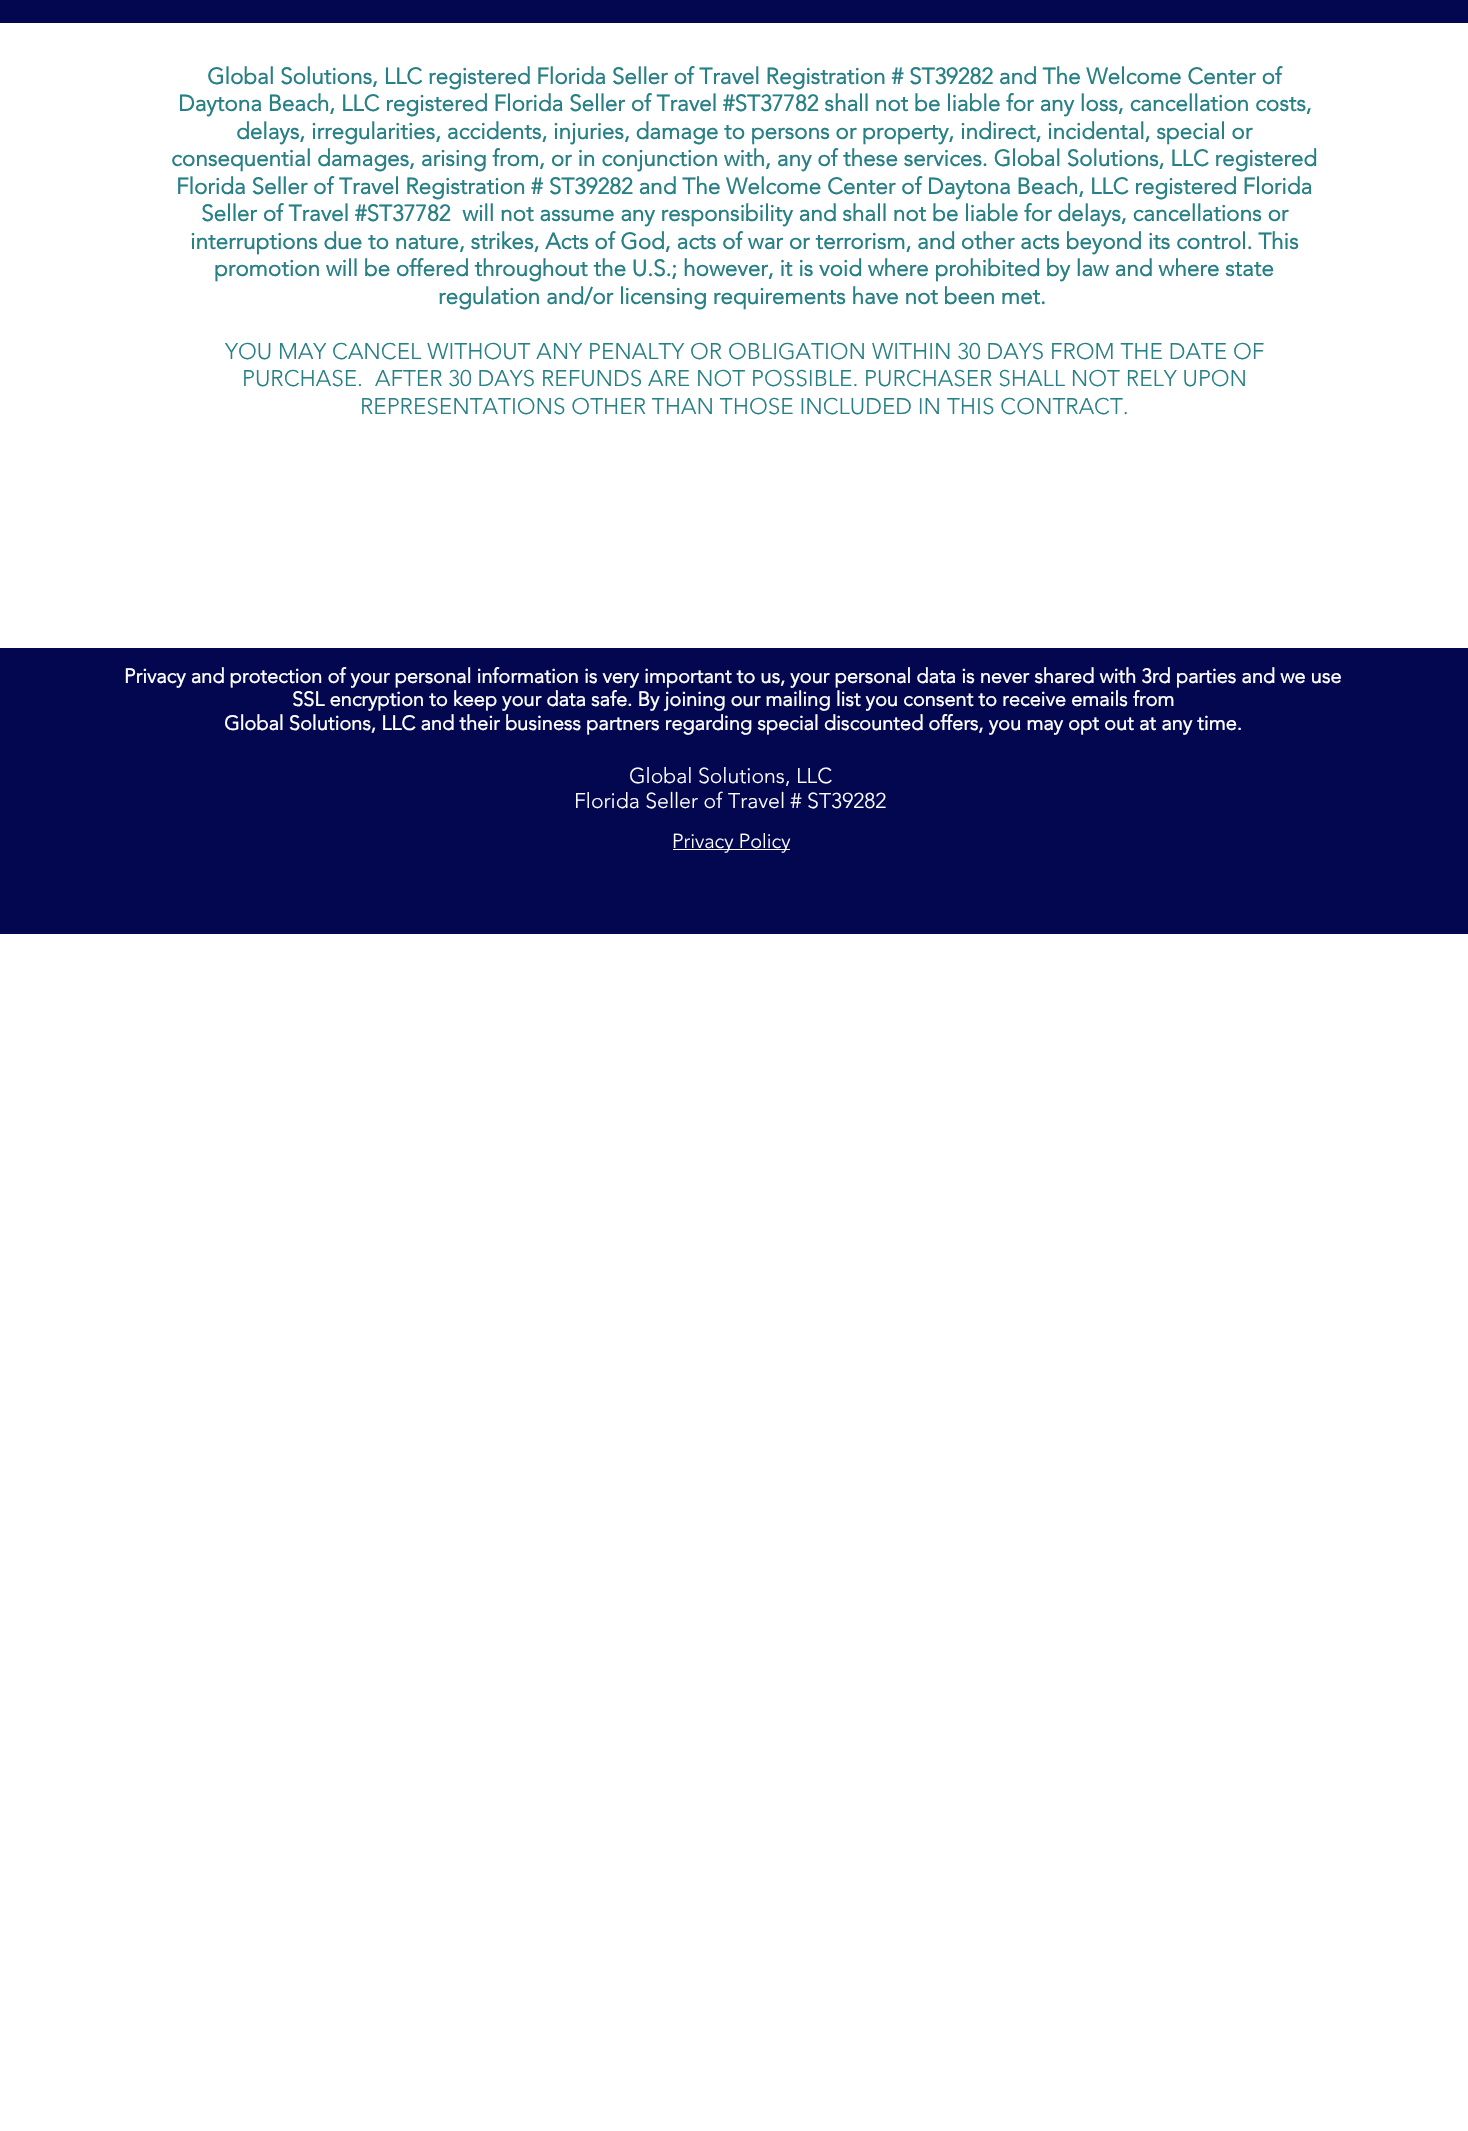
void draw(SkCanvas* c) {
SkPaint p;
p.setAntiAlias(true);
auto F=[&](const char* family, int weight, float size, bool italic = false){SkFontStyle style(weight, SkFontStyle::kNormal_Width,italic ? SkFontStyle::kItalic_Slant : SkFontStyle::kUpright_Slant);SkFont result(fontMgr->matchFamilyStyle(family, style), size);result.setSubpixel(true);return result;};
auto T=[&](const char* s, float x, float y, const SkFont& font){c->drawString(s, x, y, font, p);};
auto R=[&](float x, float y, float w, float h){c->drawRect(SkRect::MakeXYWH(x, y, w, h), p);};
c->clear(0xffffffff);
p.setColor(0xff02074f);
R(0,0,1468,23);
auto f1 = F("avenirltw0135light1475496",700,22.5);
p.setColor(0xff278085);
T("Global Solutions, LLC registered Florida Seller of Travel Registration # ST39282 and The Welcome Center of",207,84,f1);
T("Daytona Beach, LLC registered Florida Seller of Travel #ST37782 shall not be liable for any loss, cancellation costs,",178,111,f1);
T("delays, irregularities, accidents, injuries, damage to persons or property, indirect, incidental, special or",236,139,f1);
T("consequential damages, arising from, or in conjunction with, any of these services. Global Solutions, LLC registered",171,166,f1);
T("Florida Seller of Travel Registration # ST39282 and The Welcome Center of Daytona Beach, LLC registered Florida",176,194,f1);
T("Seller of Travel #ST37782  will not assume any responsibility and shall not be liable for delays, cancellations or",201,221,f1);
T("interruptions due to nature, strikes, Acts of God, acts of war or terrorism, and other acts beyond its control. This",190,249,f1);
T("promotion will be offered throughout the U.S.; however, it is void where prohibited by law and where state",214,276,f1);
T("regulation and/or licensing requirements have not been met.",438,304,f1);
auto f2 = F("avenirltw0135light1475496",300,22.5);
T("YOU MAY CANCEL WITHOUT ANY PENALTY OR OBLIGATION WITHIN 30 DAYS FROM THE DATE OF",225,359,f2);
T("PURCHASE.",242,386,f2);
T("AFTER 30 DAYS REFUNDS ARE NOT POSSIBLE. PURCHASER SHALL NOT RELY UPON",375,386,f2);
T("REPRESENTATIONS OTHER THAN THOSE INCLUDED IN THIS CONTRACT.",360,414,f2);
p.setColor(0xff02074f);
R(0,648,1468,286);
auto f3 = F("avenirltw0135light1475496",700,20);
p.setColor(0xffffffff);
T("Privacy and protection of your personal information is very important to us, your personal data is never shared with 3rd parties and we use",124,683,f3);
T("SSL encryption to keep your data safe. By joining our mailing list you consent to receive emails from",292,706,f3);
T("Global Solutions, LLC and their business partners regarding special discounted offers, you may opt out at any time.",224,730,f3);
auto f4 = F("avenirltw0135light1475496",300,21.25);
T("Global Solutions, LLC",629,783,f4);
T("Florida Seller of Travel # ST39282",574,808,f4);
R(673,849,117,1);
auto f5 = F("avenirltw0135light1475496",300,20);
T("Privacy Policy",672,848,f5);
}
